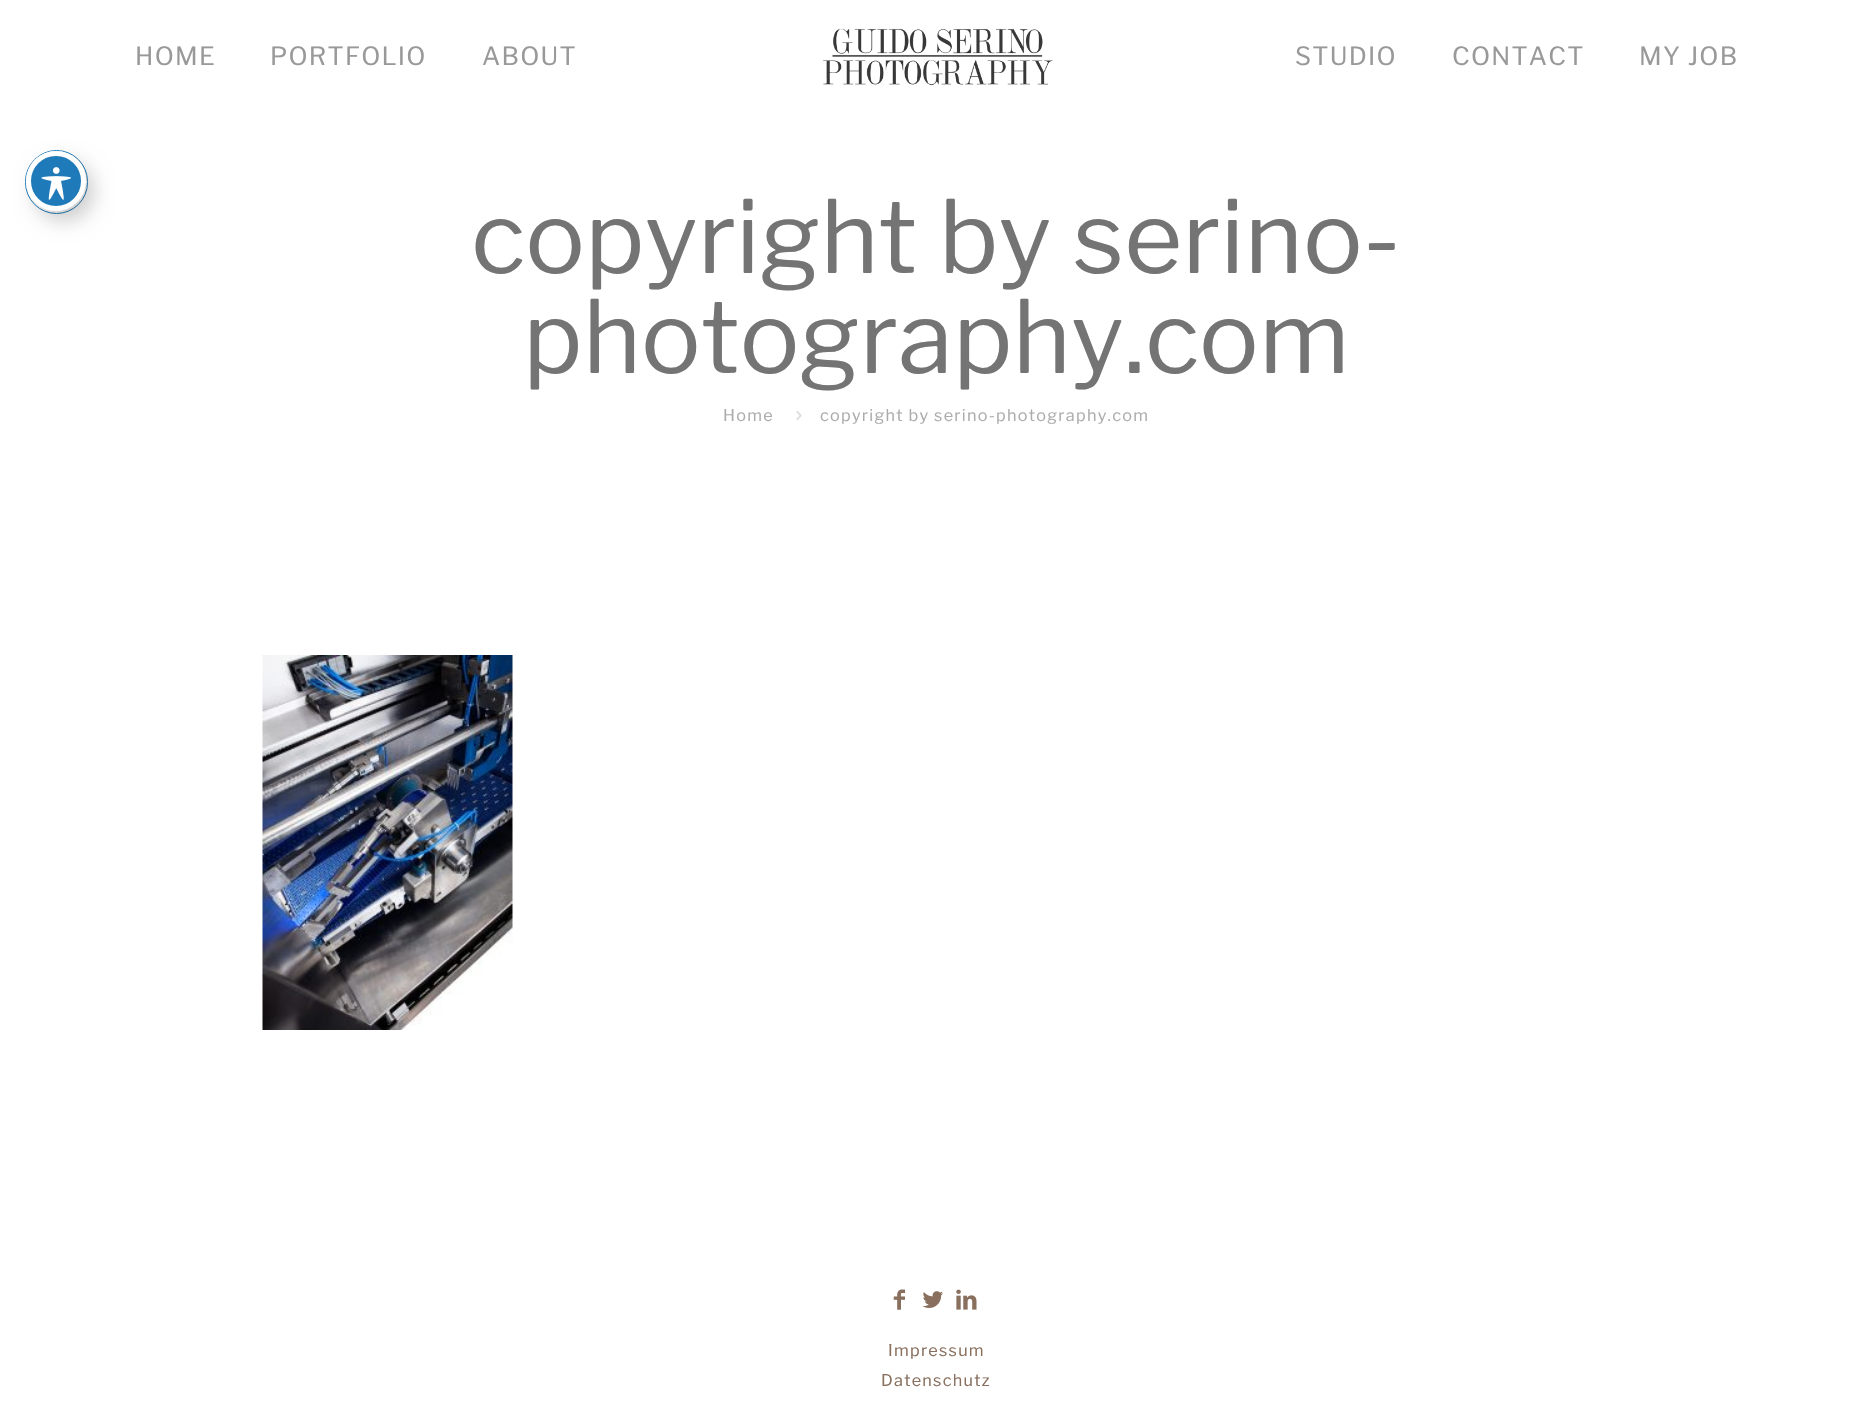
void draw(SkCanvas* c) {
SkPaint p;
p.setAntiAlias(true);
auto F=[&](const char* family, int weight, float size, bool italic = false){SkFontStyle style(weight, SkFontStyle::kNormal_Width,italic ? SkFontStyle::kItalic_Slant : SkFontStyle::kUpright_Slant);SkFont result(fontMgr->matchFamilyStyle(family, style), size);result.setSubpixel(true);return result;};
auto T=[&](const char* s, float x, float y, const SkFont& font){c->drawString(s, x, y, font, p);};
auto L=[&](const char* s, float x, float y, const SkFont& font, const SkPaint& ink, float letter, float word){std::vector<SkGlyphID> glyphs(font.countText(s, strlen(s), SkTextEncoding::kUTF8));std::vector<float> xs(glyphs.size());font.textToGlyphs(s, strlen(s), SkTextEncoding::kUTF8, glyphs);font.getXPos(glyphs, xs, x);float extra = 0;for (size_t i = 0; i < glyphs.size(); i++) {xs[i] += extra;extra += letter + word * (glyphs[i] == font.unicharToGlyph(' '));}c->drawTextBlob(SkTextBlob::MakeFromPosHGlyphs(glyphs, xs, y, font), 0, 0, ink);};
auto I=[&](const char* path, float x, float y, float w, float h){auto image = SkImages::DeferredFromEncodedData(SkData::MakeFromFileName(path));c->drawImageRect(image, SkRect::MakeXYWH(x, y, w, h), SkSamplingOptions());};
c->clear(0xffffffff);
p.setStroke(true);
p.setStrokeWidth(1);
p.setColor(0xff1e7ab9);
c->drawRoundRect(SkRect::MakeXYWH(25.5,150.5,62,63),31,31,p);
p.setStroke(false);
p.setColor(0x33000000);
p.setMaskFilter(SkMaskFilter::MakeBlur(kNormal_SkBlurStyle, 10));
c->drawRoundRect(SkRect::MakeXYWH(34,161,60,60),30,30,p);
p.setMaskFilter(nullptr);
p.setColor(0xff1e7ab9);
c->drawCircle(56,181,27.5,p);
p.setStroke(true);
p.setStrokeWidth(5);
p.setColor(0xffffffff);
c->drawCircle(56,181,27.5,p);
I("1.png",41,167,30,33);
I("2.png",823,28,230,58);
auto f1 = F("Libre Franklin",400,25);
p.setStroke(false);
p.setColor(0xff999999);
L("HOME",135,65,f1,p,1.25,0);
L("PORTFOLIO",270,65,f1,p,1.25,0);
L("ABOUT",482,65,f1,p,1.25,0);
L("STUDIO",1295,65,f1,p,1.25,0);
L("CONTACT",1452,65,f1,p,1.25,0);
L("MY JOB",1639,65,f1,p,1.25,0);
auto f2 = F("Libre Franklin",400,100);
p.setColor(0xff747474);
T("copyright by serino-",471,273,f2);
T("photography.com",523,373,f2);
auto f3 = F("Libre Franklin",400,16.25);
p.setColor(0xffacacac);
L("Home",723,421,f3,p,1.25,0);
I("3.png",796,411,6,10);
L("copyright by serino-photography.com",820,421,f3,p,1.25,0);
I("4.png",262,655,251,375);
I("5.png",893,1289,12,21);
I("6.png",922,1291,21,17);
I("7.png",956,1289,21,21);
p.setColor(0xff886f5e);
L("Impressum",888,1356,f3,p,1.25,0);
L("Datenschutz",881,1386,f3,p,1.25,0);
}
